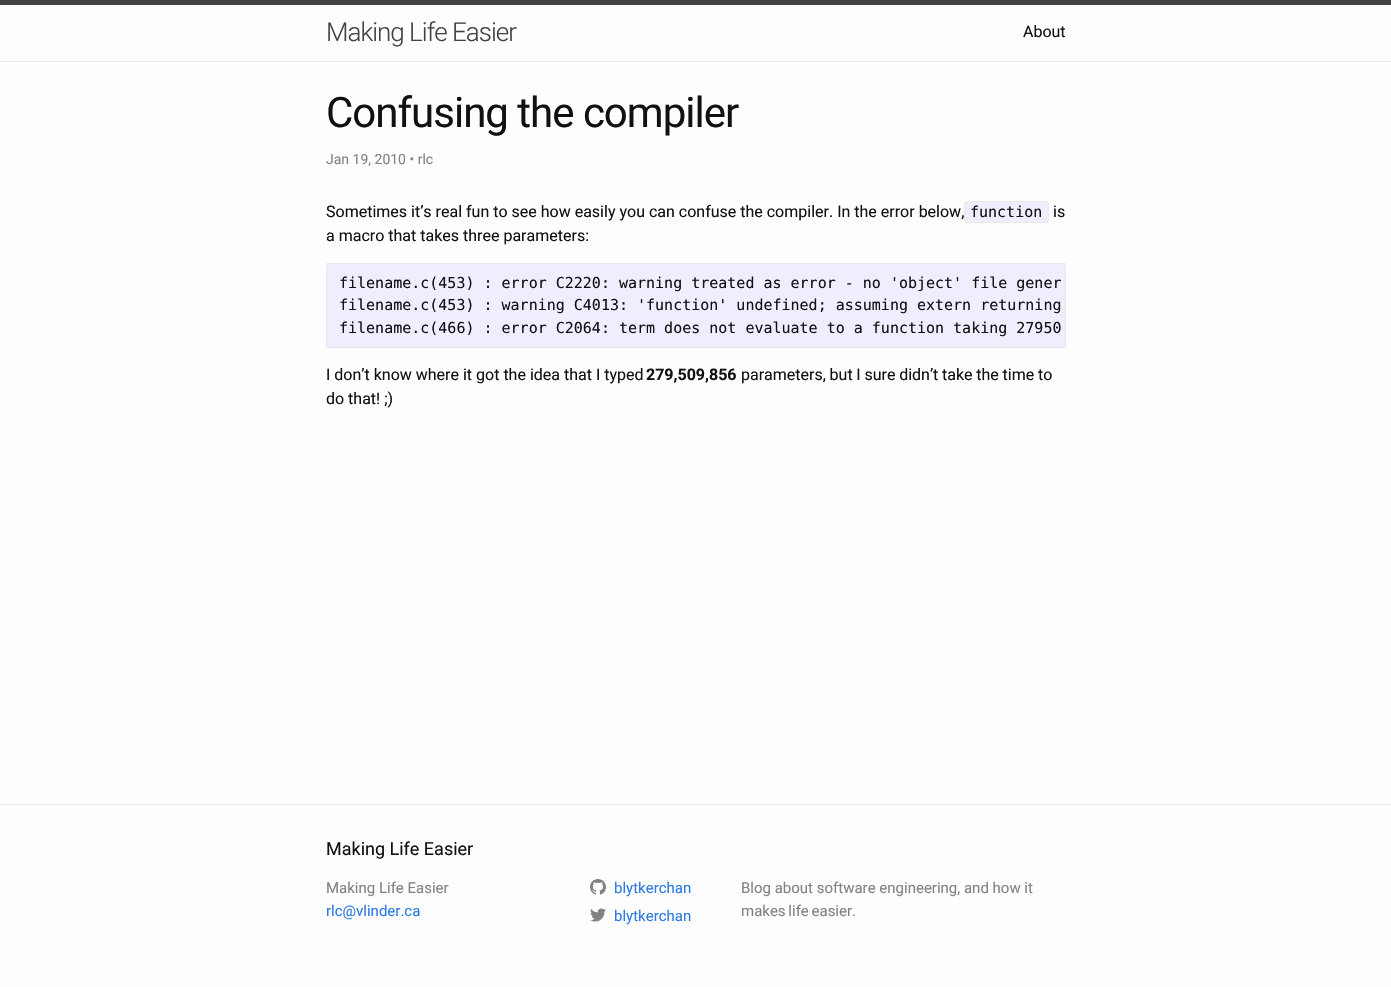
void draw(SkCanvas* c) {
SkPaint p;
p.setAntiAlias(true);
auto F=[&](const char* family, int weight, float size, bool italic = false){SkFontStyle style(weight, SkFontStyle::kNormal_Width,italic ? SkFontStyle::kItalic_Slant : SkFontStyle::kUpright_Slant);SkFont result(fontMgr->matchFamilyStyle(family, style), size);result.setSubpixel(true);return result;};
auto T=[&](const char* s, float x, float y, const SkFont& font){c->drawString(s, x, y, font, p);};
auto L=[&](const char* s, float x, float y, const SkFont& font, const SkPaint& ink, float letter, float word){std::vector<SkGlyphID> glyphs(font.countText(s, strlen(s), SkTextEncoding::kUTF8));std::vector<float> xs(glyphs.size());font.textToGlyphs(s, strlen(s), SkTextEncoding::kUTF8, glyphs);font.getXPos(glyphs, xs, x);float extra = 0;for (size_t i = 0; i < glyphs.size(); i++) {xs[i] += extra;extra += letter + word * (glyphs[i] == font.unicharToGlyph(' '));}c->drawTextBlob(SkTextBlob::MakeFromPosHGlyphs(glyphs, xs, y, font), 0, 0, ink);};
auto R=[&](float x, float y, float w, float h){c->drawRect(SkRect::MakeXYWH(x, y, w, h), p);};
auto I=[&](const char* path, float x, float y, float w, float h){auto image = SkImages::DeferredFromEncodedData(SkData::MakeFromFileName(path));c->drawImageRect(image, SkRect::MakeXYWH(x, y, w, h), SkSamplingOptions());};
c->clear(0xfffdfdfd);
p.setColor(0xff424242);
R(0,0,1391,5);
p.setColor(0xffe8e8e8);
R(0,61,1391,1);
auto f1 = F("Roboto",300,26);
p.setColor(0xff424242);
L("Making Life Easier",326,41,f1,p,-1,0);
auto f2 = F("Roboto",400,16);
p.setColor(0xff111111);
T("About",1023,37,f2);
auto f3 = F("Roboto",400,42);
L("Confusing the compiler",326,127,f3,p,-1,0);
auto f4 = F("Roboto",400,14);
p.setColor(0xff828282);
T("Jan 19, 2010 • rlc",326,164,f4);
p.setColor(0xff111111);
T("Sometimes it’s real fun to see how easily you can confuse the compiler. In the error below,",326,217,f2);
p.setColor(0xffeeeeff);
c->drawRoundRect(SkRect::MakeXYWH(964.5,201.5,84,21),2.5,2.5,p);
p.setStroke(true);
p.setStrokeWidth(1);
p.setColor(0xffe8e8e8);
c->drawRoundRect(SkRect::MakeXYWH(964.5,201.5,84,21),2.5,2.5,p);
auto f5 = F("DejaVu Sans Mono",400,15);
p.setStroke(false);
p.setColor(0xff111111);
T("function",970,217,f5);
T("is",1053,217,f2);
T("a macro that takes three parameters:",326,241,f2);
p.setColor(0xffeeeeff);
R(326,263,740,85);
p.setStroke(true);
p.setColor(0xffe8e8e8);
c->drawRoundRect(SkRect::MakeXYWH(326.5,263.5,739,84),2.5,2.5,p);
p.setStroke(false);
p.setColor(0xff111111);
T("filename.c(453) : error C2220: warning treated as error - no 'object' file gener",339,288,f5);
T("filename.c(453) : warning C4013: 'function' undefined; assuming extern returning",339,310,f5);
T("filename.c(466) : error C2064: term does not evaluate to a function taking 27950",339,333,f5);
T("I don’t know where it got the idea that I typed",326,380,f2);
auto f6 = F("Roboto",700,16);
T("279,509,856",646,380,f6);
L("parameters, but I sure didn’t take the time to",741,380,f2,p,0,-.25);
T("do that! ;)",326,404,f2);
p.setColor(0xffe8e8e8);
R(0,804,1391,1);
auto f7 = F("Roboto",400,18);
p.setColor(0xff111111);
T("Making Life Easier",326,855,f7);
auto f8 = F("Roboto",400,15);
p.setColor(0xff828282);
T("Making Life Easier",326,893,f8);
p.setColor(0xff2a7ae2);
T("rlc@vlinder.ca",326,916,f8);
I("1.png",590,879,16,16);
T("blytkerchan",614,893,f8);
I("2.png",590,908,16,14);
T("blytkerchan",614,921,f8);
p.setColor(0xff828282);
T("Blog about software engineering, and how it",741,893,f8);
L("makes life easier.",741,916,f8,p,0,-1);
}
